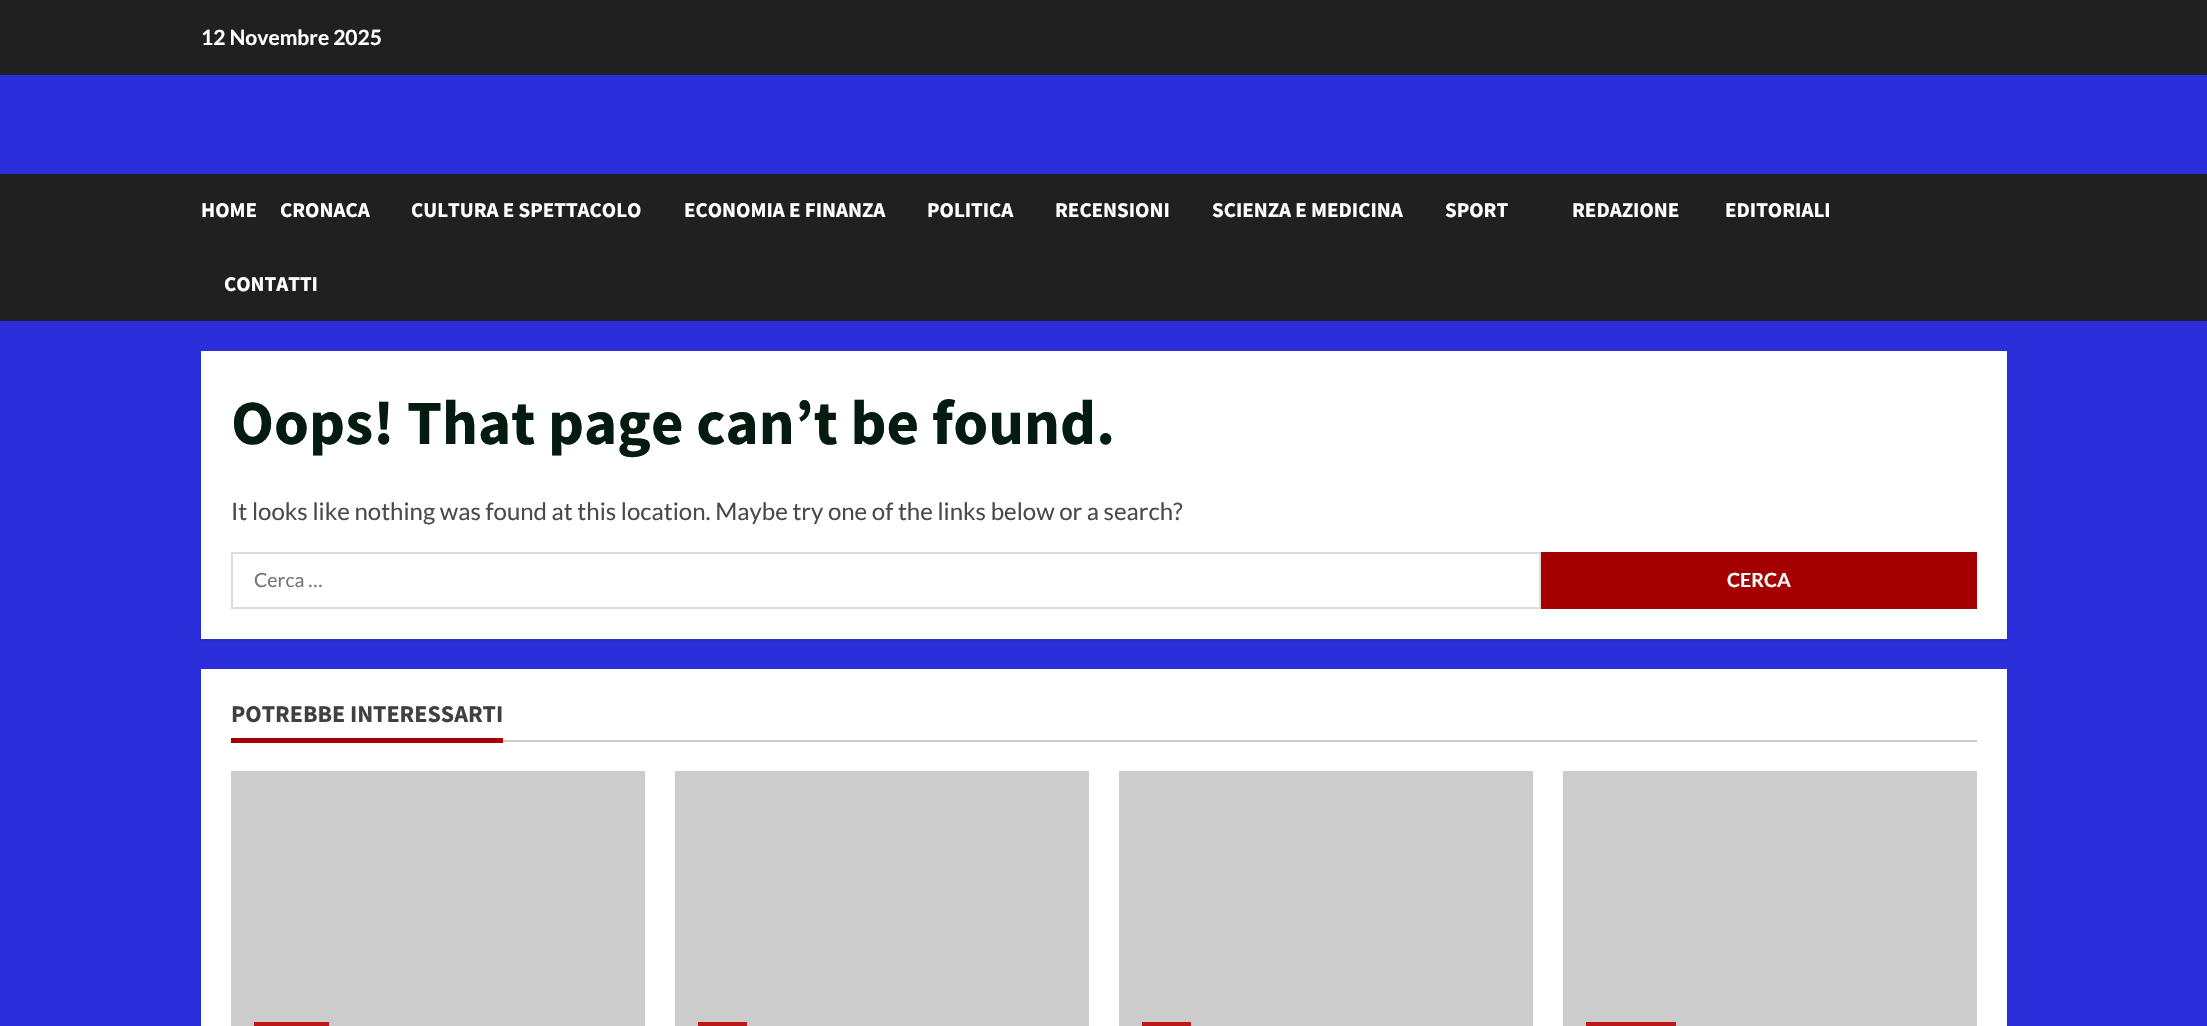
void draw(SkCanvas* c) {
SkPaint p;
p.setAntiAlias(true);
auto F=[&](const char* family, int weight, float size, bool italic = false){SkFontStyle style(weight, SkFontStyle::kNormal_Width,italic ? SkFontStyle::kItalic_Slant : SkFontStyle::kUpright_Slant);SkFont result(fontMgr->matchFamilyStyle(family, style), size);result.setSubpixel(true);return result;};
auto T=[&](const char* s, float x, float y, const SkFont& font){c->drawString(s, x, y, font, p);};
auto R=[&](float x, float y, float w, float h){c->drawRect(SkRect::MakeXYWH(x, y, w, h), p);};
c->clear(0xff2b2edb);
p.setColor(0xff202020);
R(0,0,2207,75);
auto f1 = F("Lato",700,21);
p.setColor(0xffffffff);
T("12 Novembre 2025",201,45,f1);
p.setColor(0xff202020);
R(0,174,2207,147);
auto f2 = F("Source Sans Pro",700,21);
p.setColor(0xffffffff);
T("HOME",201,217,f2);
T("CRONACA",280,217,f2);
T("CULTURA E SPETTACOLO",411,217,f2);
T("ECONOMIA E FINANZA",684,217,f2);
T("POLITICA",927,217,f2);
T("RECENSIONI",1055,217,f2);
T("SCIENZA E MEDICINA",1212,217,f2);
T("SPORT",1445,217,f2);
T("REDAZIONE",1572,217,f2);
T("EDITORIALI",1725,217,f2);
T("CONTATTI",224,291,f2);
p.setColor(0x14000000);
p.setMaskFilter(SkMaskFilter::MakeBlur(kNormal_SkBlurStyle, 1.5));
c->drawRect(SkRect::MakeXYWH(201,354,1806,288),p);
p.setMaskFilter(nullptr);
p.setColor(0xffffffff);
R(201,351,1806,288);
auto f3 = F("Source Sans Pro",700,63);
p.setColor(0xff031b11);
T("Oops! That page can’t be found.",231,444,f3);
auto f4 = F("Lato",400,24);
p.setColor(0xff4a4a4a);
T("It looks like nothing was found at this location. Maybe try one of the links below or a search?",231,520,f4);
p.setStroke(true);
p.setStrokeWidth(2);
p.setColor(0xffdcdcdc);
c->drawRect(SkRect::MakeXYWH(232,553,1308,55),p);
auto f5 = F("Lato",400,19.5);
p.setStroke(false);
p.setColor(0xff757575);
T("Cerca …",254,587,f5);
p.setColor(0xffa50000);
R(1541,552,436,57);
auto f6 = F("Lato",700,19.5);
p.setColor(0xffffffff);
T("CERCA",1727,587,f6);
p.setColor(0x14000000);
p.setMaskFilter(SkMaskFilter::MakeBlur(kNormal_SkBlurStyle, 1.5));
c->drawRect(SkRect::MakeXYWH(201,672,1806,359),p);
p.setMaskFilter(nullptr);
p.setColor(0xffffffff);
R(201,669,1806,357);
p.setColor(0xffcccccc);
R(503,740,1474,2);
auto f7 = F("Source Sans Pro",700,24);
p.setColor(0xff404040);
T("POTREBBE INTERESSARTI",231,722,f7);
p.setColor(0xffa50000);
R(231,738,272,5);
p.setColor(0xffcccccc);
R(231,771,414,255);
p.setColor(0xffbb1919);
R(254,1022,75,4);
p.setColor(0xffcccccc);
R(675,771,414,255);
p.setColor(0xffbb1919);
R(698,1022,49,4);
p.setColor(0xffcccccc);
R(1119,771,414,255);
p.setColor(0xffbb1919);
R(1142,1022,49,4);
p.setColor(0xffcccccc);
R(1563,771,414,255);
p.setColor(0xffbb1919);
R(1586,1022,90,4);
}
